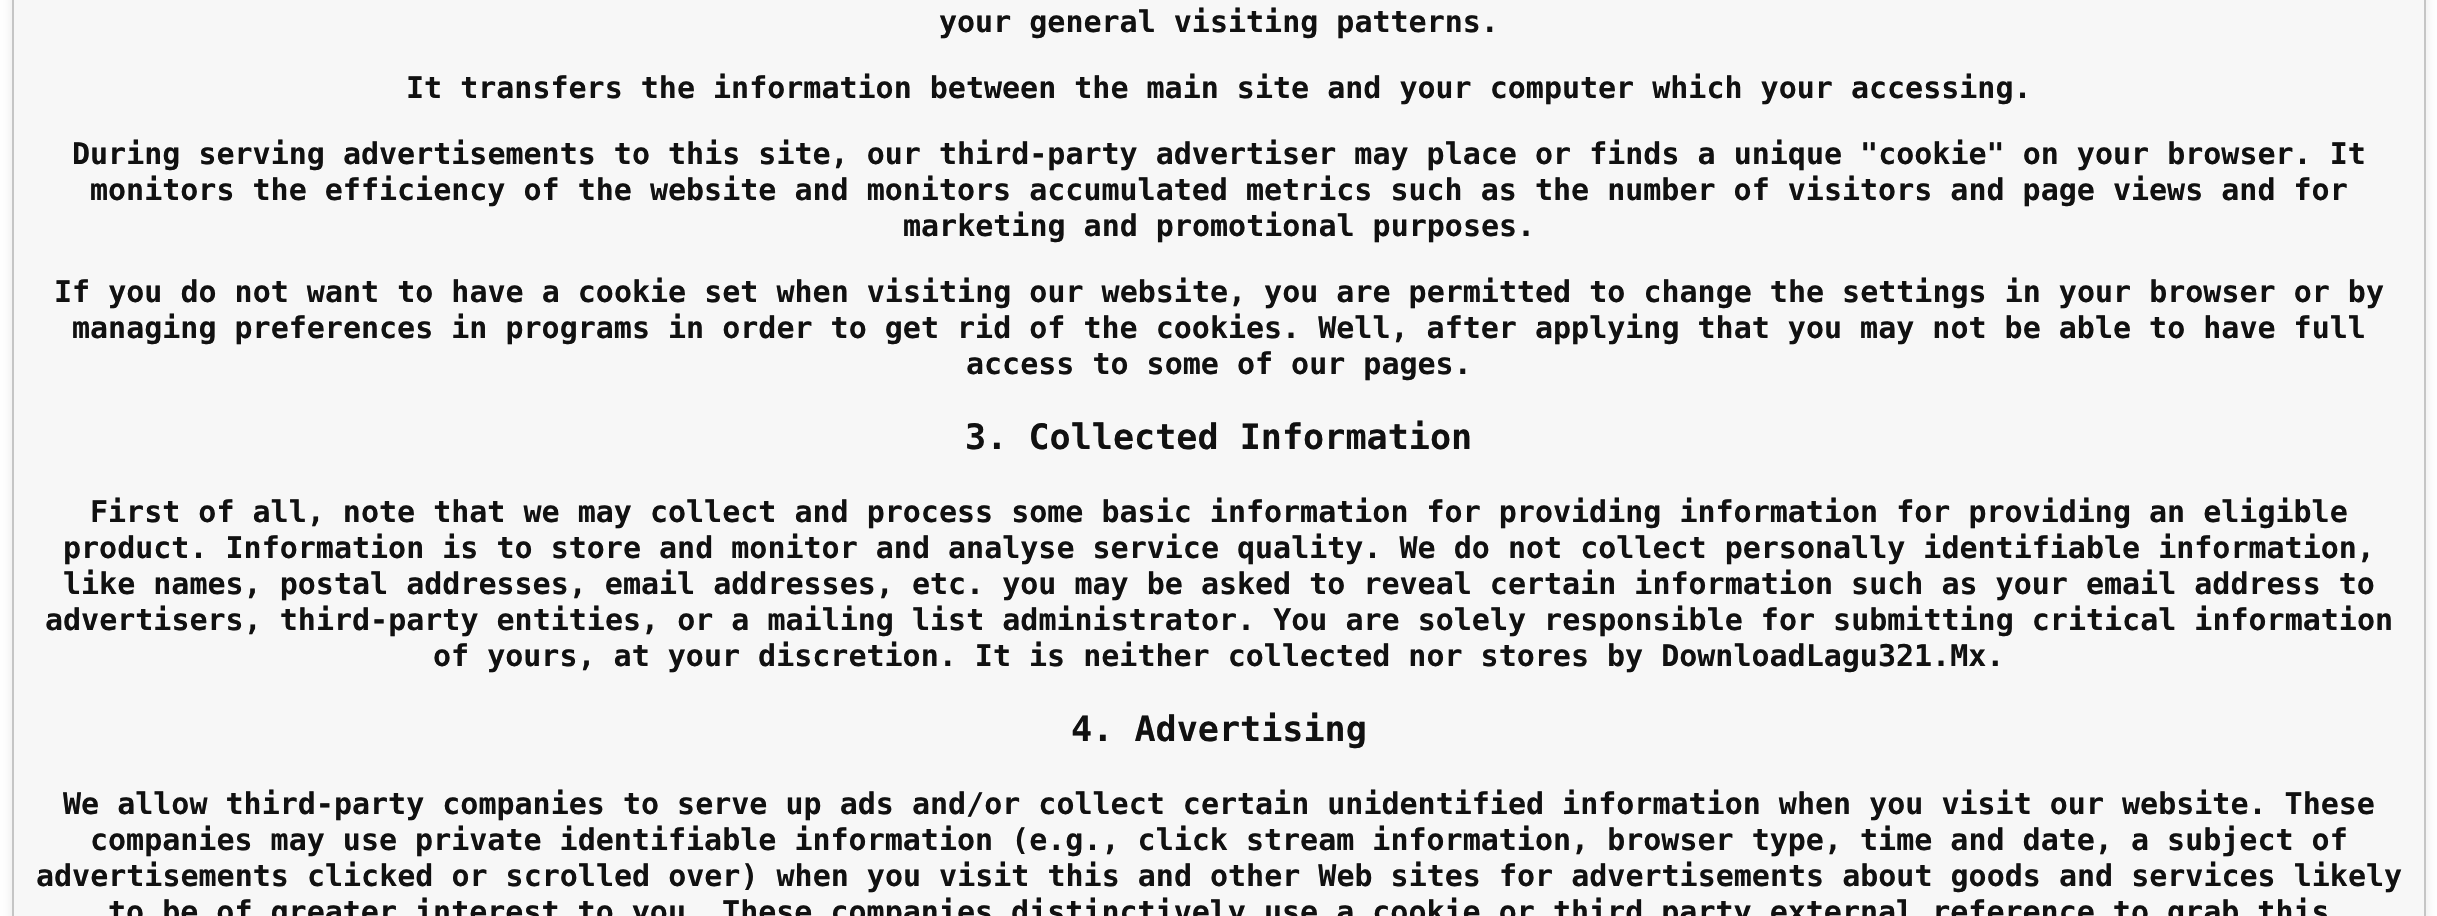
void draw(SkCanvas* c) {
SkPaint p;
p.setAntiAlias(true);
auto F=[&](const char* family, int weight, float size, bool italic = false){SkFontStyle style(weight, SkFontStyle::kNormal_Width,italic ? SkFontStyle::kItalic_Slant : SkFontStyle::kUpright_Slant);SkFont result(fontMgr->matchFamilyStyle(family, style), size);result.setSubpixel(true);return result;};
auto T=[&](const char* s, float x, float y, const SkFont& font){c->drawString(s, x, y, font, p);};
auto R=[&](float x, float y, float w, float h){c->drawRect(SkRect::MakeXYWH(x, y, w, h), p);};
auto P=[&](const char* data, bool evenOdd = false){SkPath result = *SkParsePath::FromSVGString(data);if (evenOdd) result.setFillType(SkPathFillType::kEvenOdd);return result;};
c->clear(0xffffffff);
c->save();
c->clipPath(P("M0 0h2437v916h-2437zm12-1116h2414v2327h-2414z",true),true);
p.setColor(0x14000000);
p.setMaskFilter(SkMaskFilter::MakeBlur(kNormal_SkBlurStyle, 4.5));
c->drawRect(SkRect::MakeXYWH(11,-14,2416,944),p);
p.setMaskFilter(nullptr);
c->restore();
p.setColor(0x26cccccc);
R(12,0,2414,916);
p.setStroke(true);
p.setStrokeWidth(2);
p.setColor(0x33000000);
c->drawRect(SkRect::MakeXYWH(13,-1,2412,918),p);
auto f1 = F("DejaVu Sans Mono",700,30);
p.setStroke(false);
p.setColor(0xff111111);
T("your general visiting patterns.",939,32,f1);
T("It transfers the information between the main site and your computer which your accessing.",406,98,f1);
T("During serving advertisements to this site, our third-party advertiser may place or finds a unique \"cookie\" on your browser. It",72,164,f1);
T("monitors the efficiency of the website and monitors accumulated metrics such as the number of visitors and page views and for",90,200,f1);
T("marketing and promotional purposes.",903,236,f1);
T("If you do not want to have a cookie set when visiting our website, you are permitted to change the settings in your browser or by",54,302,f1);
T("managing preferences in programs in order to get rid of the cookies. Well, after applying that you may not be able to have full",72,338,f1);
T("access to some of our pages.",966,374,f1);
auto f2 = F("DejaVu Sans Mono",700,35.1);
T("3. Collected Information",965,449,f2);
T("First of all, note that we may collect and process some basic information for providing information for providing an eligible",90,522,f1);
T("product. Information is to store and monitor and analyse service quality. We do not collect personally identifiable information,",63,558,f1);
T("like names, postal addresses, email addresses, etc. you may be asked to reveal certain information such as your email address to",63,594,f1);
T("advertisers, third-party entities, or a mailing list administrator. You are solely responsible for submitting critical information",45,630,f1);
T("of yours, at your discretion. It is neither collected nor stores by DownloadLagu321.Mx.",433,666,f1);
T("4. Advertising",1071,741,f2);
T("We allow third-party companies to serve up ads and/or collect certain unidentified information when you visit our website. These",63,814,f1);
T("companies may use private identifiable information (e.g., click stream information, browser type, time and date, a subject of",90,850,f1);
T("advertisements clicked or scrolled over) when you visit this and other Web sites for advertisements about goods and services likely",36,886,f1);
T("to be of greater interest to you. These companies distinctively use a cookie or third party external reference to grab this",108,922,f1);
}
